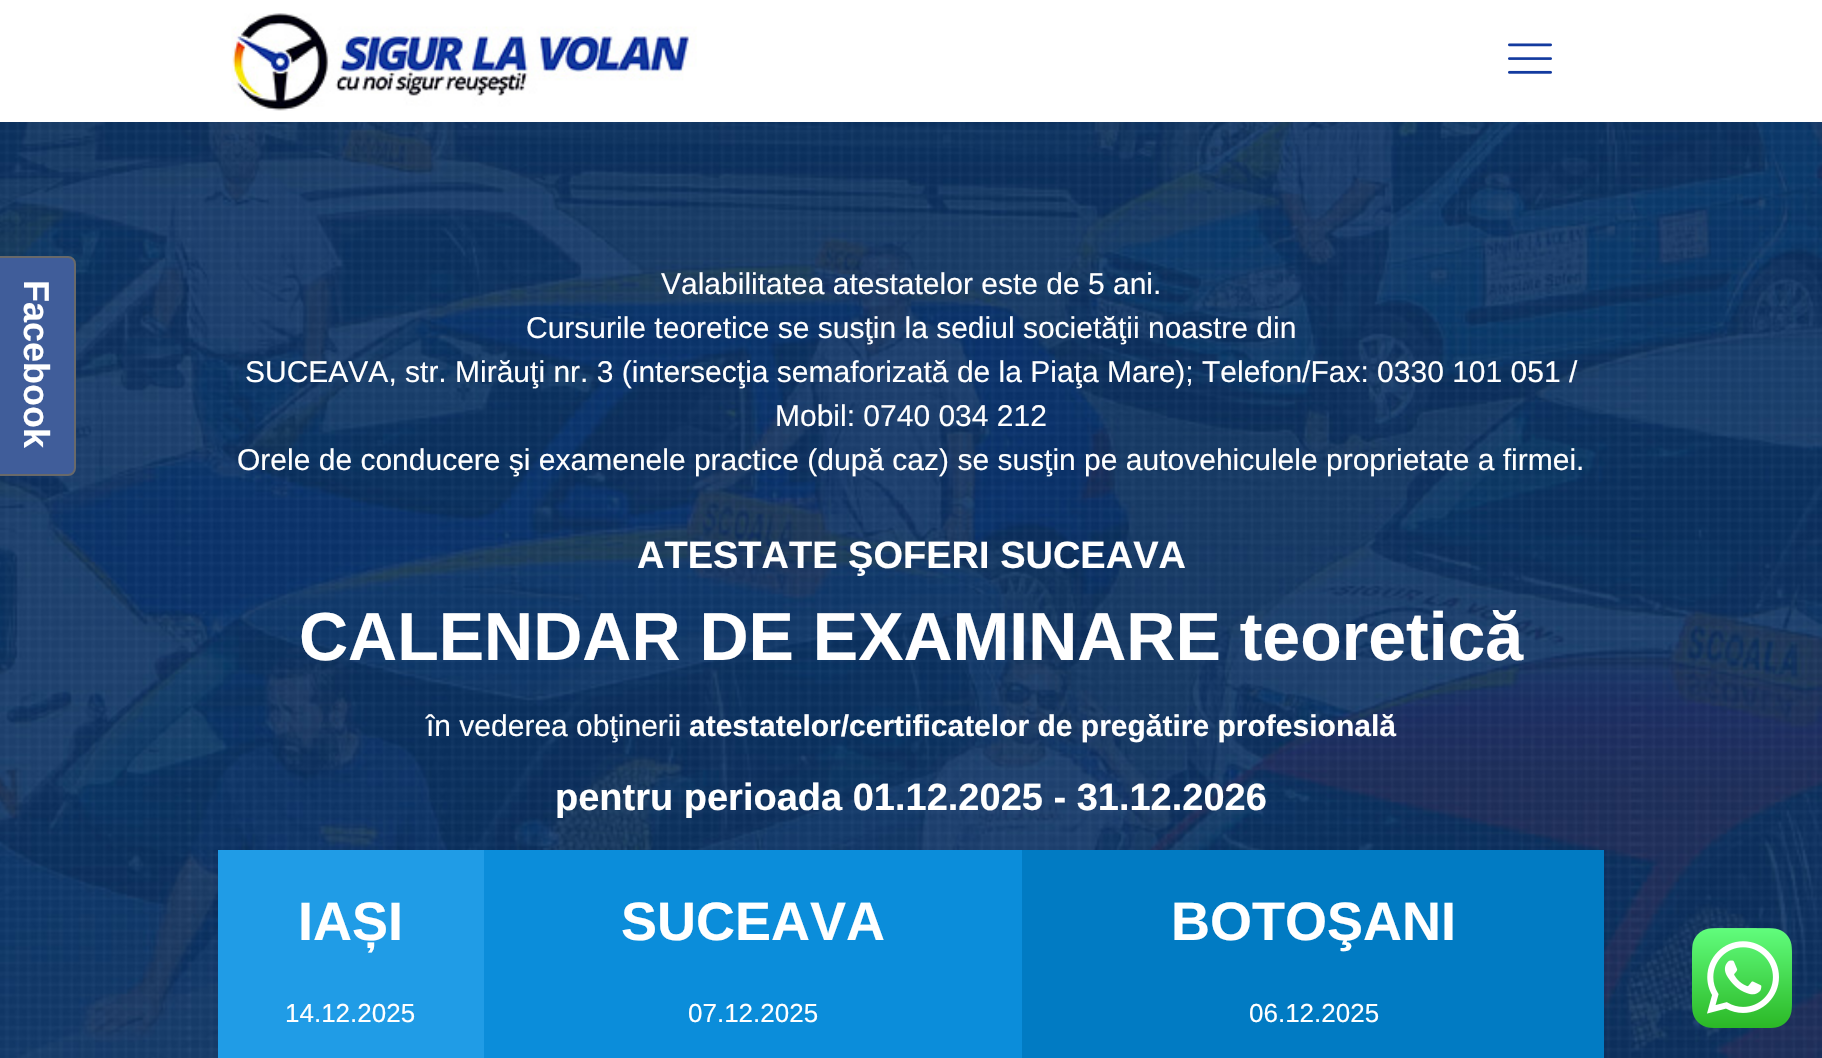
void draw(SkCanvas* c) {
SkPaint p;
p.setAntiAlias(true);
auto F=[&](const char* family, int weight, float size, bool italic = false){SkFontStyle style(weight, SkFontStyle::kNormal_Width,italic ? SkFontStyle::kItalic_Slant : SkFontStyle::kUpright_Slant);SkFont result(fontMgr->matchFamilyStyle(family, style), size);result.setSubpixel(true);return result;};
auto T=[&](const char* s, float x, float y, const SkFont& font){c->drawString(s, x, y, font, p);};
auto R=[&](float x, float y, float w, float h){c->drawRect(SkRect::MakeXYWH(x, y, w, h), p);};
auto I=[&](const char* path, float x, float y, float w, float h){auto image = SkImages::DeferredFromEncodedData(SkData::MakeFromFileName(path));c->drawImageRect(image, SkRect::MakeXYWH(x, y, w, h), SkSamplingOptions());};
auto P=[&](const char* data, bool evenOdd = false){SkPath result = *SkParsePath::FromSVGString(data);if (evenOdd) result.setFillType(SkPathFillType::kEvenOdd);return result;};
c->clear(0xffffffff);
I("3.png",0,122,1822,936);
p.setColor(0xff405d9a);
c->drawPath(P("M-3 257h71c4 0 7 3 7 7v204c0 4-3 7-7 7h-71z"),p);
p.setStroke(true);
p.setStrokeWidth(2);
p.setColor(0xff696969);
c->drawPath(P("M-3 257h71c4 0 7 3 7 7v204c0 4-3 7-7 7h-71z"),p);
auto f1 = F("Liberation Sans",700,36);
p.setStroke(false);
p.setColor(0xffffffff);
c->save();
c->rotate(90,24,280);
T("Facebook",24,280,f1);
c->restore();
I("1.png",231,13,466,98);
I("2.png",1508,43,44,31);
auto f2 = F("Liberation Sans",400,30);
T("Valabilitatea atestatelor este de 5 ani.",661,294,f2);
T("Cursurile teoretice se susţin la sediul societăţii noastre din",526,338,f2);
T("SUCEAVA, str. Mirăuţi nr. 3 (intersecţia semaforizată de la Piaţa Mare); Telefon/Fax: 0330 101 051 /",245,382,f2);
T("Mobil: 0740 034 212",775,426,f2);
T("Orele de conducere şi examenele practice (după caz) se susţin pe autovehiculele proprietate a firmei.",237,470,f2);
auto f3 = F("Liberation Sans",700,38);
T("ATESTATE ŞOFERI SUCEAVA",637,568,f3);
auto f4 = F("Liberation Sans",700,68);
T("CALENDAR DE EXAMINARE teoretică",299,660,f4);
T("în vederea obţinerii",426,736,f2);
auto f5 = F("Liberation Sans",700,30);
T("atestatelor/certificatelor de pregătire profesională",689,736,f5);
T("pentru perioada 01.12.2025 - 31.12.2026",555,810,f3);
p.setColor(0xff209ce6);
R(218,850,266,208);
auto f6 = F("Liberation Sans",700,54);
p.setColor(0xffffffff);
T("IAȘI",298,940,f6);
auto f7 = F("Liberation Sans",400,26);
T("14.12.2025",285,1022,f7);
p.setColor(0xff0b8dda);
R(484,850,538,208);
p.setColor(0xffffffff);
T("SUCEAVA",621,940,f6);
T("07.12.2025",688,1022,f7);
p.setColor(0xff017bc3);
R(1022,850,582,208);
p.setColor(0xffffffff);
T("BOTOŞANI",1171,940,f6);
T("06.12.2025",1249,1022,f7);
I("4.png",1692,928,100,100);
}
